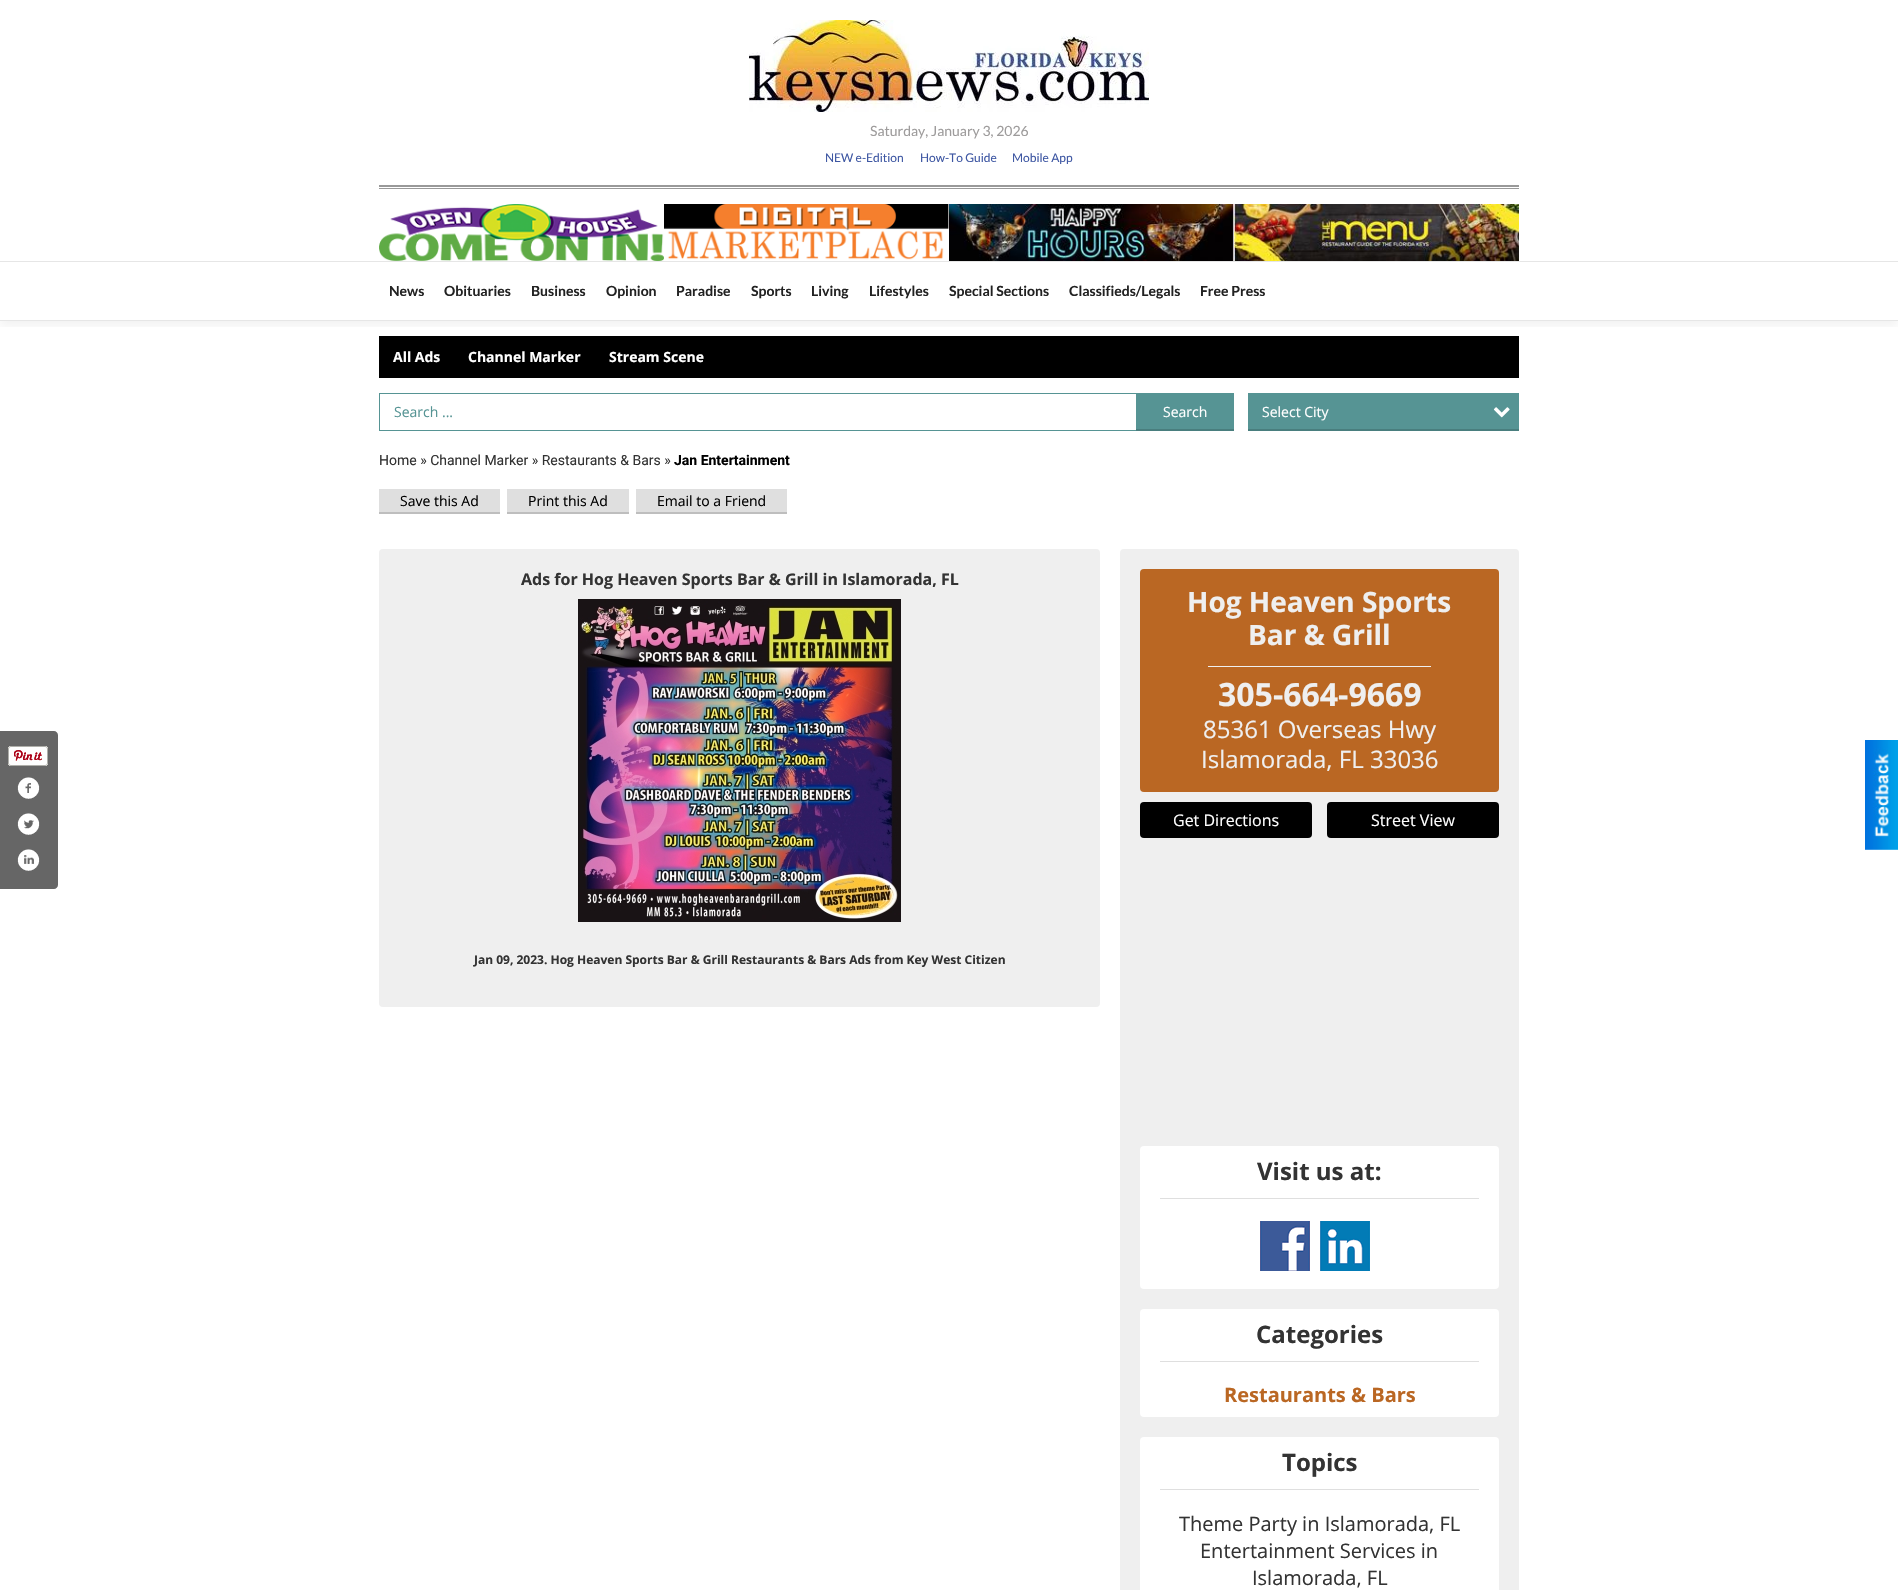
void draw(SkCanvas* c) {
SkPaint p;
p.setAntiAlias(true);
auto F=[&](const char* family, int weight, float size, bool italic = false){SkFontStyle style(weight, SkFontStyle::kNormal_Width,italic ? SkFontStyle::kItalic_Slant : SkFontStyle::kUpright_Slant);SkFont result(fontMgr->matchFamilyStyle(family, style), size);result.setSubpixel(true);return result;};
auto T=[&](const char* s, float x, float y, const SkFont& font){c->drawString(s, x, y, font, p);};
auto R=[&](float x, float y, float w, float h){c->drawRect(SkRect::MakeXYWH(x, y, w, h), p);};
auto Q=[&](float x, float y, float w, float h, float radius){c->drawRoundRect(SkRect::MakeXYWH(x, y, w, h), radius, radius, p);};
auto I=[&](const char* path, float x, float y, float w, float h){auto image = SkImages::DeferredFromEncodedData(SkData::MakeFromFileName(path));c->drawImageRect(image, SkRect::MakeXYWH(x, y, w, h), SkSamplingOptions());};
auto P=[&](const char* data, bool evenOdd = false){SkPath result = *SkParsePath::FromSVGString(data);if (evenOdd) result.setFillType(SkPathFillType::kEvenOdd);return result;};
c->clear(0xffffffff);
p.setColor(0xff000000);
R(379,336,1140,42);
c->save();
c->clipRect(SkRect::MakeXYWH(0,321,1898,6));
p.setColor(0x0d000000);
p.setMaskFilter(SkMaskFilter::MakeBlur(kNormal_SkBlurStyle, 5));
c->drawRect(SkRect::MakeXYWH(0,5,1898,321),p);
p.setMaskFilter(nullptr);
c->restore();
p.setColor(0xffe6e6e6);
R(0,320,1898,1);
I("1.png",749,20,400,92);
auto f1 = F("Lato",400,14);
p.setColor(0xff9e9c9c);
T("Saturday, January 3, 2026",870,136,f1);
auto f2 = F("Lato",400,12);
p.setColor(0xff3e57a3);
T("NEW e-Edition",825,162,f2);
T("How-To Guide",920,162,f2);
T("Mobile App",1012,162,f2);
p.setColor(0xff999999);
R(379,185,1140,2);
R(379,188,1140,1);
I("2.png",379,204,285,57);
I("3.png",664,204,285,56);
I("4.png",949,204,285,57);
I("5.png",1234,204,285,57);
p.setColor(0xffe6e6e6);
R(0,261,1898,1);
auto f3 = F("Lato",700,14);
p.setColor(0xff222222);
T("News",389,296,f3);
T("Obituaries",444,296,f3);
T("Business",531,296,f3);
T("Opinion",606,296,f3);
T("Paradise",676,296,f3);
T("Sports",751,296,f3);
T("Living",811,296,f3);
T("Lifestyles",869,296,f3);
T("Special Sections",949,296,f3);
T("Classifieds/Legals",1069,296,f3);
T("Free Press",1200,296,f3);
p.setColor(0xff666666);
c->drawPath(P("M0 731h54c2 0 4 2 4 4v150c0 2-2 4-4 4h-54z"),p);
I("6.png",8,746,40,20);
I("7.png",17,777,23,22);
I("8.png",17,813,23,22);
I("9.png",17,849,23,22);
auto f4 = F("Open Sans",700,14);
p.setColor(0xffffffff);
T("All Ads",393,362,f4);
T("Channel Marker",468,362,f4);
T("Stream Scene",609,362,f4);
p.setStroke(true);
p.setStrokeWidth(1);
p.setColor(0xff569494);
c->drawRect(SkRect::MakeXYWH(379.5,393.5,854,37),p);
auto f5 = F("Open Sans",400,14);
p.setStroke(false);
T("Search ...",394,417,f5);
R(1136,394,97,35);
p.setColor(0xff497e7e);
R(1136,429,98,2);
p.setColor(0xffffffff);
T("Search",1163,417,f5);
p.setColor(0xff569494);
R(1248,393,271,36);
p.setColor(0xff497e7e);
R(1248,429,271,2);
p.setColor(0xffffffff);
T("Select City",1262,417,f5);
I("10.png",1493,407,17,11);
auto f6 = F("Roboto",400,14);
p.setColor(0xff333333);
T("Home » Channel Marker » Restaurants & Bars »",379,465,f6);
auto f7 = F("Roboto",700,14);
p.setColor(0xff000000);
T("Jan Entertainment",674,465,f7);
p.setColor(0xffdfdfdf);
R(379,489,121,23);
p.setColor(0xffbebebe);
R(379,512,121,2);
p.setColor(0xff000000);
T("Save this Ad",400,506,f5);
p.setColor(0xffdfdfdf);
R(507,489,122,23);
p.setColor(0xffbebebe);
R(507,512,122,2);
p.setColor(0xff000000);
T("Print this Ad",528,506,f5);
p.setColor(0xffdfdfdf);
R(636,489,151,23);
p.setColor(0xffbebebe);
R(636,512,151,2);
p.setColor(0xff000000);
T("Email to a Friend",657,506,f5);
p.setColor(0xffefefef);
Q(379,549,721,458,4);
auto f8 = F("Open Sans",700,16);
p.setColor(0xff333333);
T("Ads for Hog Heaven Sports Bar & Grill in Islamorada, FL",521,585,f8);
I("11.png",578,599,323,323);
auto f9 = F("Open Sans",700,12);
T("Jan 09, 2023. Hog Heaven Sports Bar & Grill Restaurants & Bars Ads from Key West Citizen",474,964,f9);
p.setColor(0xffefefef);
Q(1120,549,399,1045,4);
p.setColor(0xffba6723);
Q(1140,569,359,223,4);
auto f10 = F("Open Sans",700,28);
p.setColor(0xffefefef);
T("Hog Heaven Sports",1187,612,f10);
T("Bar & Grill",1248,645,f10);
R(1208,666,223,1);
auto f11 = F("Open Sans",700,32);
T("305-664-9669",1218,706,f11);
auto f12 = F("Open Sans",400,24);
T("85361 Overseas Hwy",1203,738,f12);
T("Islamorada, FL 33036",1201,768,f12);
p.setColor(0xff000000);
Q(1140,802,172,36,4);
auto f13 = F("Open Sans",400,16);
p.setColor(0xffffffff);
T("Get Directions",1173,826,f13);
p.setColor(0xff000000);
Q(1327,802,172,36,4);
p.setColor(0xffffffff);
T("Street View",1371,826,f13);
Q(1140,1146,359,143,4);
p.setColor(0xffdfdfdf);
R(1160,1198,319,1);
auto f14 = F("Open Sans",700,24);
p.setColor(0xff333333);
T("Visit us at:",1257,1180,f14);
I("12.png",1260,1221,50,50);
I("13.png",1320,1221,50,50);
p.setColor(0xffffffff);
Q(1140,1309,359,108,4);
p.setColor(0xffdfdfdf);
R(1160,1361,319,1);
p.setColor(0xff333333);
T("Categories",1256,1343,f14);
auto f15 = F("Open Sans",700,20);
p.setColor(0xffba6723);
T("Restaurants & Bars",1224,1402,f15);
p.setColor(0xffffffff);
Q(1140,1437,359,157,4);
p.setColor(0xffdfdfdf);
R(1160,1489,319,1);
p.setColor(0xff333333);
T("Topics",1282,1471,f14);
auto f16 = F("Open Sans",400,20);
T("Theme Party in Islamorada, FL",1179,1531,f16);
T("Entertainment Services in",1200,1558,f16);
T("Islamorada, FL",1252,1585,f16);
I("14.png",1865,740,33,110);
}
